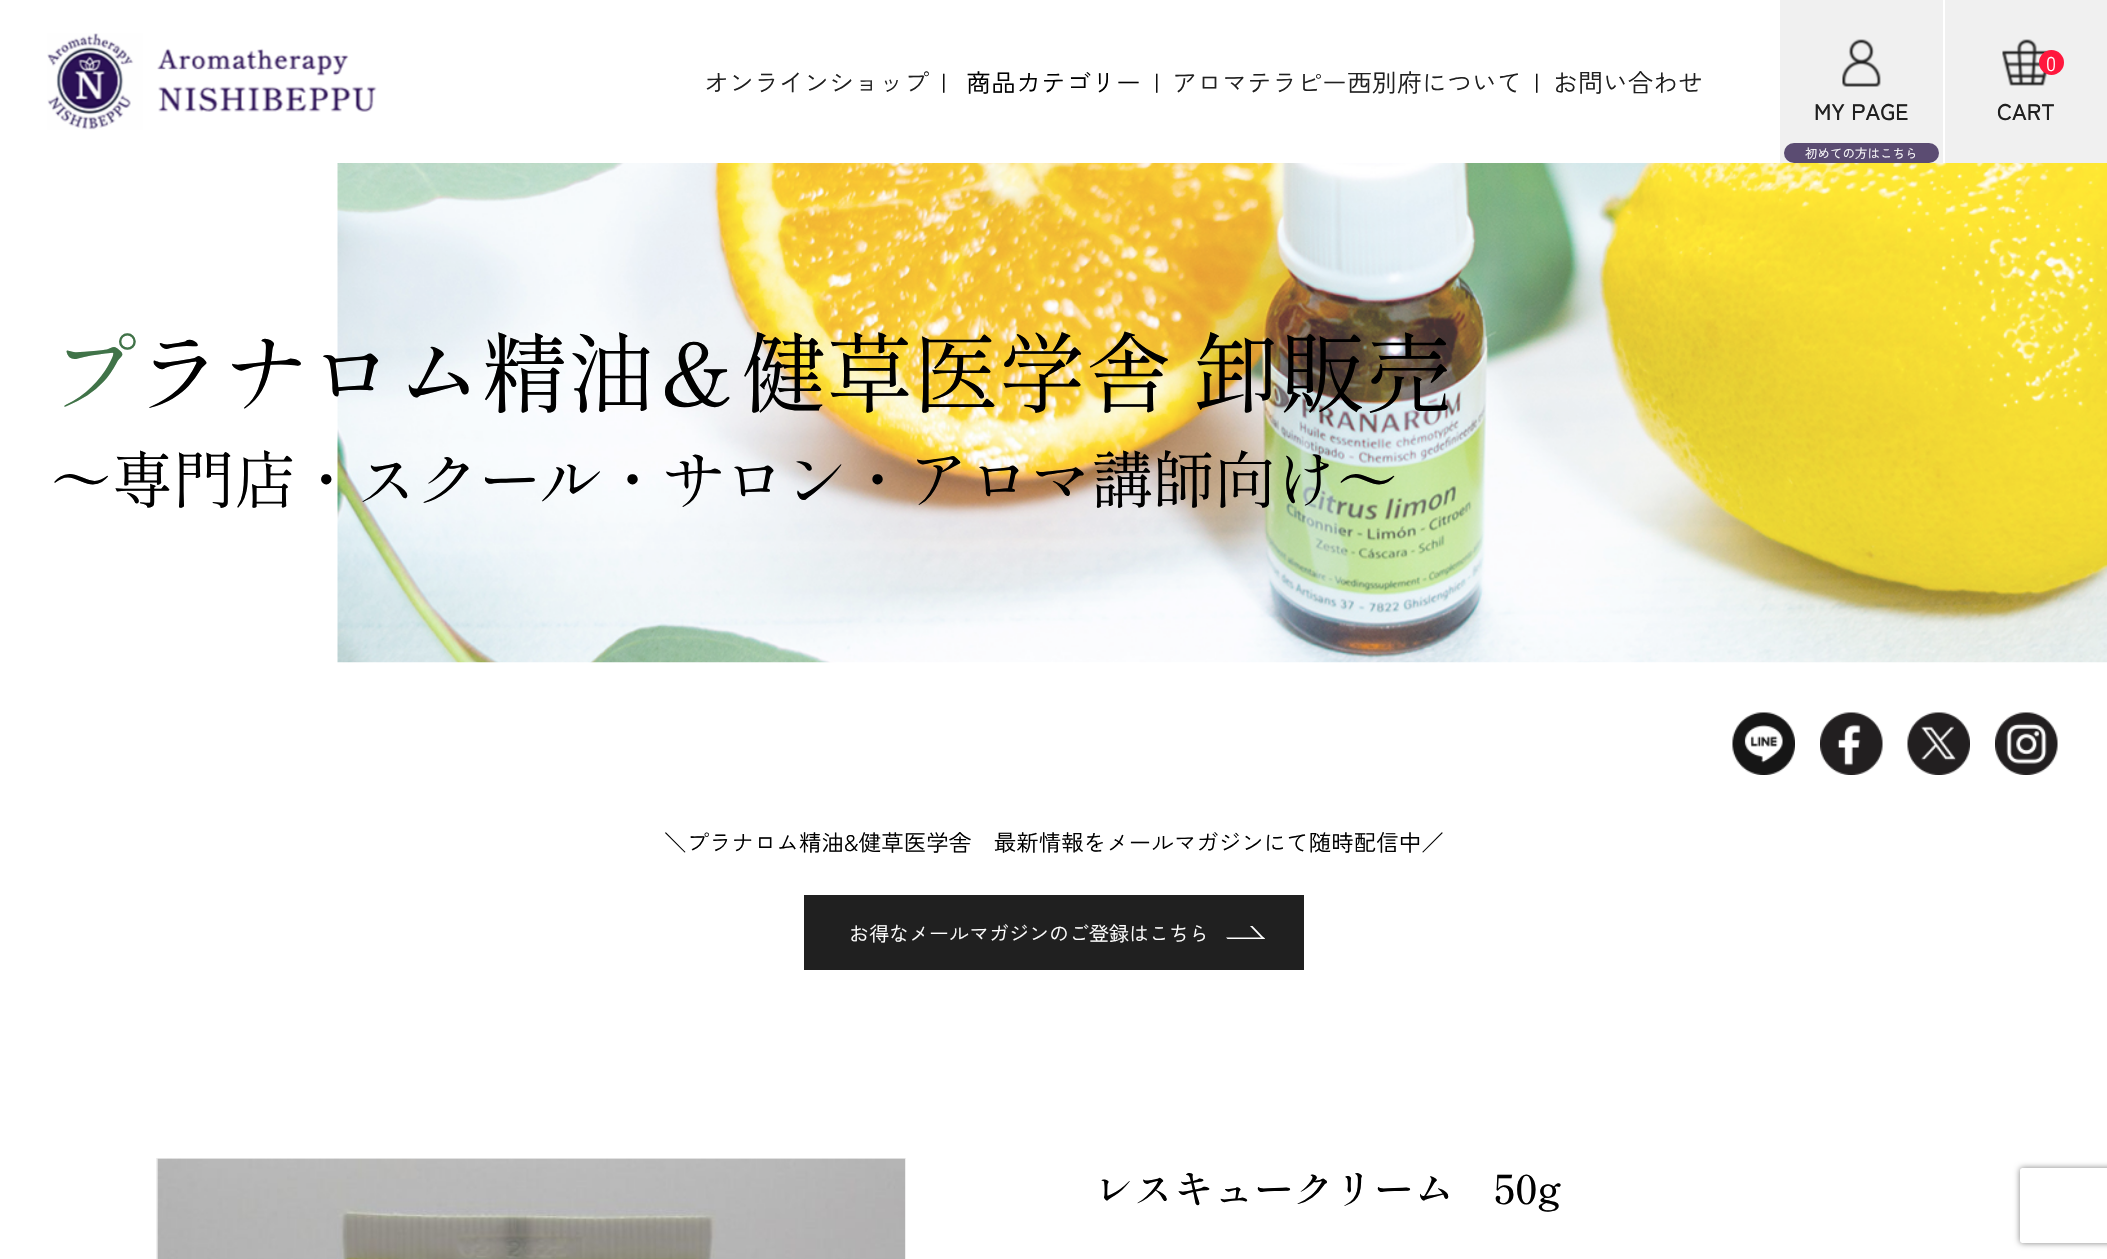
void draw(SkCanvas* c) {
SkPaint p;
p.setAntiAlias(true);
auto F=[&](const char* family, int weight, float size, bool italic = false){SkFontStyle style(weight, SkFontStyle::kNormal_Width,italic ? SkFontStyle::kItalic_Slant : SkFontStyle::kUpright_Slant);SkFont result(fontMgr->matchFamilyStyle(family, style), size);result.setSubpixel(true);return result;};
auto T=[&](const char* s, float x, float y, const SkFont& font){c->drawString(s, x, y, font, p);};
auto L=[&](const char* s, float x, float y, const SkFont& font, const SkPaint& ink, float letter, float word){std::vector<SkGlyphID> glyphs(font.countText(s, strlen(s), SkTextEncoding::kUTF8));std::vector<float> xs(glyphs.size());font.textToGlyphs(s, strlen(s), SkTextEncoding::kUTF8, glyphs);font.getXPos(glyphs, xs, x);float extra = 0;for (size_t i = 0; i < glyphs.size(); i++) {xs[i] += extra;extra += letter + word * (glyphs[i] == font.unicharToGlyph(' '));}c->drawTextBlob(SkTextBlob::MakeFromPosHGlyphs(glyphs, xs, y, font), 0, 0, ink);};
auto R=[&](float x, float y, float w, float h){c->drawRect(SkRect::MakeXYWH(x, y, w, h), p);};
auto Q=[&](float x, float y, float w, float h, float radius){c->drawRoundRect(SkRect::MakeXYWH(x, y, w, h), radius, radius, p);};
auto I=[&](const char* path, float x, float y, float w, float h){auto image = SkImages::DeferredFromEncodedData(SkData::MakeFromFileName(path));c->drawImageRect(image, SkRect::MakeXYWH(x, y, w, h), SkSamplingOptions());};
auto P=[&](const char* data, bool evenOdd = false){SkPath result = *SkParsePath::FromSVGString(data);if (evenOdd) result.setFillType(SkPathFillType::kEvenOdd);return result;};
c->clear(0xffffffff);
I("1.png",47,33,330,97);
auto f1 = F("Zen Kaku Gothic New",400,25);
p.setColor(0xff202020);
T("オンラインショップ",704,92,f1);
p.setColor(0xff000000);
T("|",941,92,f1);
T("商品カテゴリー",966,92,f1);
T("|",1154,92,f1);
p.setColor(0xff202020);
T("アロマテラピー西別府について",1172,92,f1);
p.setColor(0xff000000);
T("|",1534,92,f1);
p.setColor(0xff202020);
T("お問い合わせ",1553,92,f1);
p.setColor(0xfff0f0f0);
R(1945,0,162,163);
I("2.png",2002,39,50,47);
p.setColor(0xffff173d);
c->drawCircle(2051.5,62.5,12.5,p);
auto f2 = F("Zen Kaku Gothic New",400,20);
p.setColor(0xffffffff);
T("0",2046,71,f2);
auto f3 = F("Zen Kaku Gothic New",500,22.5);
p.setColor(0xff202020);
T("CART",1997,120,f3);
p.setColor(0xfff0f0f0);
R(1780,0,163,163);
I("3.png",1842,39,39,48);
p.setColor(0xff202020);
T("MY PAGE",1814,120,f3);
p.setColor(0xff5b4c72);
Q(1784,143,155,20,10);
auto f4 = F("Zen Kaku Gothic New",400,12.5);
p.setColor(0xffffffff);
T("初めての方はこちら",1805,158,f4);
I("4.png",337,163,1770,500);
auto f5 = F("Shippori Mincho",400,87.5);
p.setColor(0xff407348);
L("プ",50,406,f5,p,-1.25,0);
p.setColor(0xff000000);
L("ラナロム精油＆健草医学舎 卸販売",136,406,f5,p,-1.25,0);
auto f6 = F("Shippori Mincho",400,62.5);
L("～専門店・スクール・サロン・アロマ講師向け～",50,503,f6,p,-1.25,0);
I("5.png",1732,712,63,63);
I("6.png",1820,712,63,63);
I("7.png",1907,712,63,63);
I("8.png",1995,712,63,63);
auto f7 = F("Zen Kaku Gothic New",400,22.5);
T("＼プラナロム精油&健草医学舎　最新情報をメールマガジンにて随時配信中／",664,851,f7);
p.setColor(0xff202020);
R(804,895,500,75);
p.setColor(0xffffffff);
T("お得なメールマガジンのご登録はこちら",849,941,f2);
c->drawPath(P("M1250 926h2.5l12.5 13h-2.5z"),p);
c->drawPath(P("M1226 937.5h38l1 1.5h-37.5z"),p);
p.setStroke(true);
p.setStrokeWidth(1);
p.setColor(0xffeeeeee);
c->drawRect(SkRect::MakeXYWH(156.5,1158.5,749,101),p);
I("9.png",157,1158,748,101);
auto f8 = F("Shippori Mincho",500,40);
p.setStroke(false);
p.setColor(0xff000000);
T("レスキュークリーム　50g",1094,1204,f8);
c->save();
c->clipPath(P("M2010 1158h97v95h-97zm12.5 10h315c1.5 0 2.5 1 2.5 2.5v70c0 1.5-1 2.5-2.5 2.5h-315c-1.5 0-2.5-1-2.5-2.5v-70c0-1.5 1-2.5 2.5-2.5z",true),true);
p.setColor(0xff808080);
p.setMaskFilter(SkMaskFilter::MakeBlur(kNormal_SkBlurStyle, 3));
c->drawRoundRect(SkRect::MakeXYWH(2020,1168,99,75),2.5,2.5,p);
p.setMaskFilter(nullptr);
c->restore();
}
